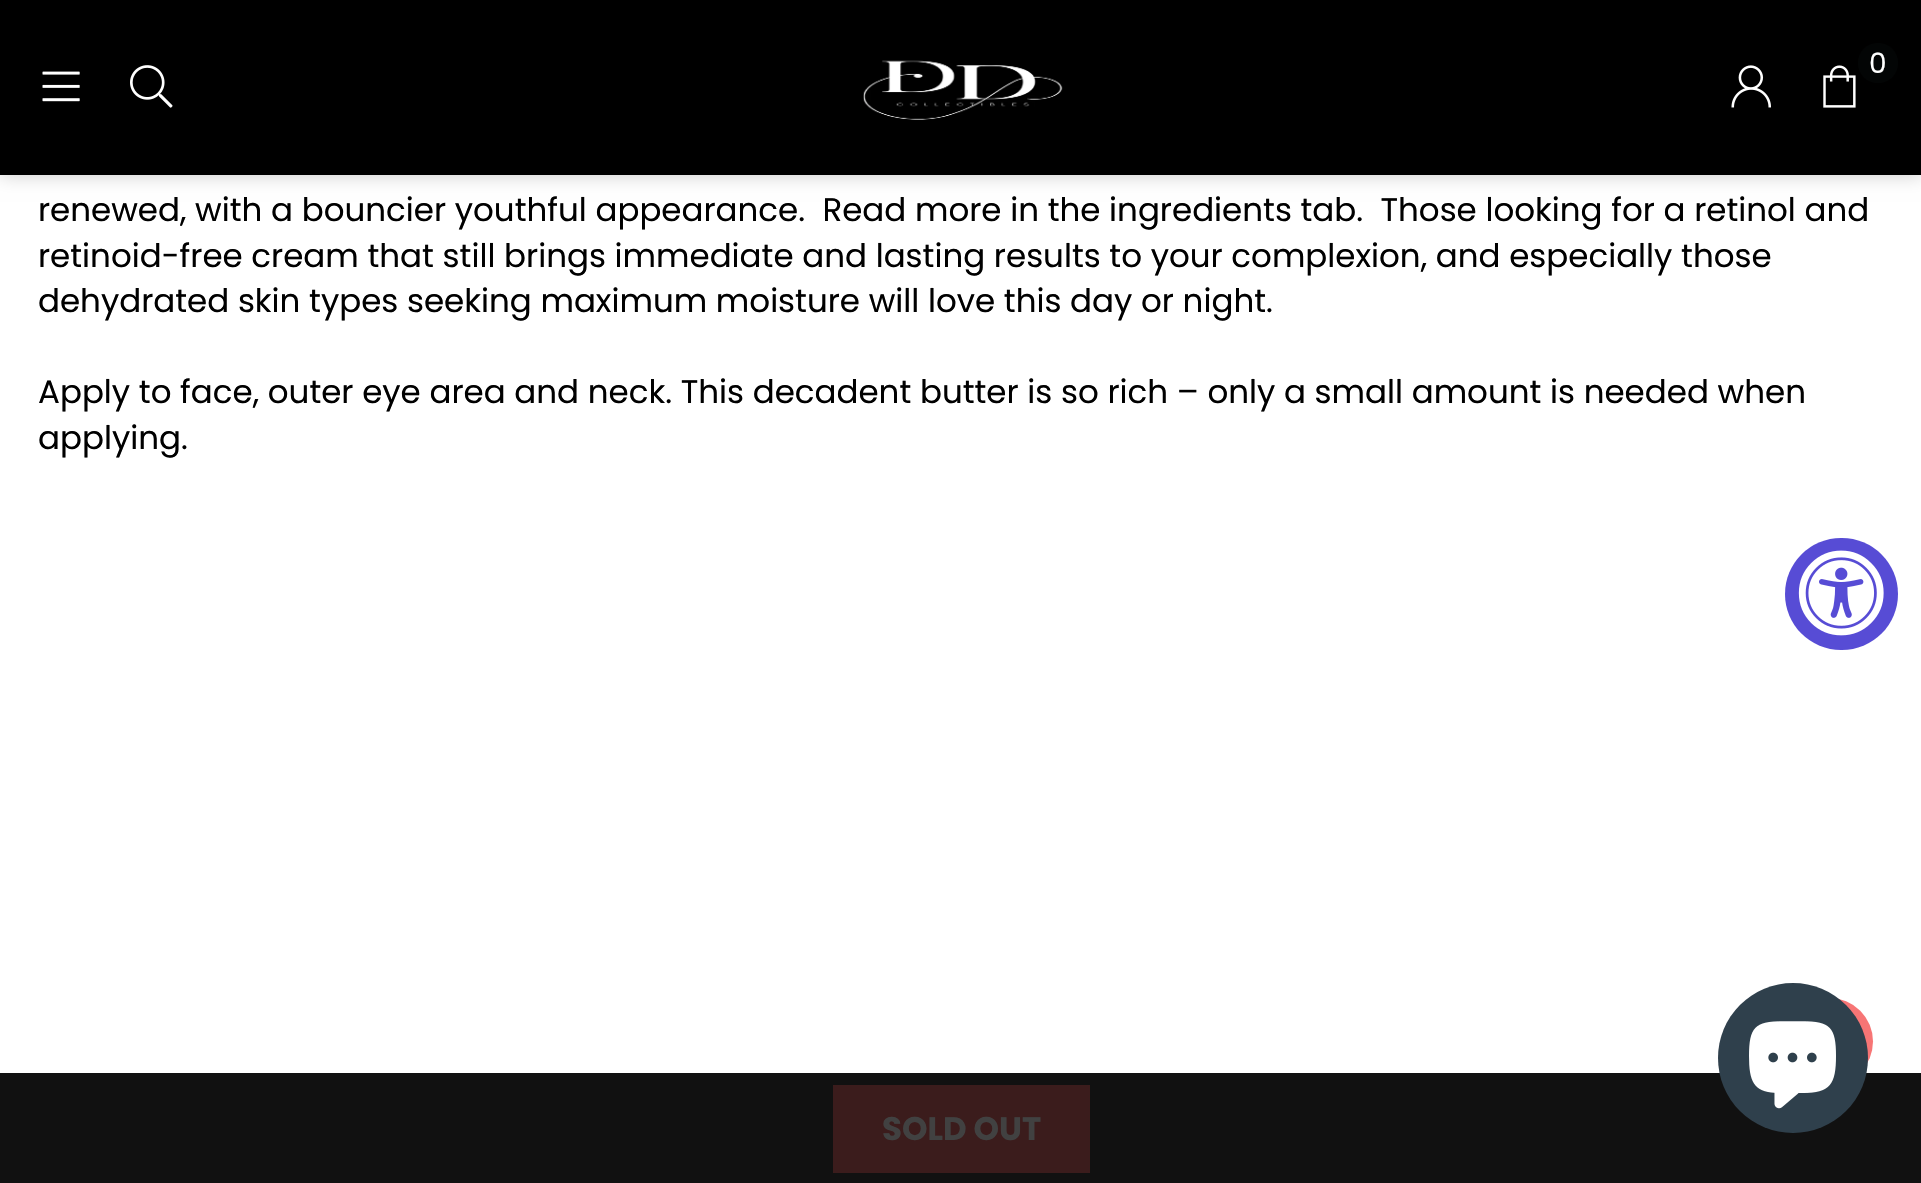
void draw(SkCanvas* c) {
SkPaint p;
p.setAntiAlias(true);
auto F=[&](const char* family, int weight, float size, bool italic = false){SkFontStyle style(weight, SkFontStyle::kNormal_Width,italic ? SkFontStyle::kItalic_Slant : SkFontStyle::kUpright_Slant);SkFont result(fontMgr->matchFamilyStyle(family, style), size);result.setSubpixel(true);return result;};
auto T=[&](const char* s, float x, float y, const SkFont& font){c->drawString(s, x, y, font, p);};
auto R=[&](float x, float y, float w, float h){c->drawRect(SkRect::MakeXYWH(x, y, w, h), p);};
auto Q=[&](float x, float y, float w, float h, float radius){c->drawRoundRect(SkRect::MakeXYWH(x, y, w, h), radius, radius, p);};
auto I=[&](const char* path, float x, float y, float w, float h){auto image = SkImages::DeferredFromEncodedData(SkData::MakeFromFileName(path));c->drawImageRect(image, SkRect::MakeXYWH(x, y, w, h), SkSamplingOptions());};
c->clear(0xffffffff);
p.setColor(0x33000000);
p.setMaskFilter(SkMaskFilter::MakeBlur(kNormal_SkBlurStyle, 9));
c->drawRect(SkRect::MakeXYWH(0,0,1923,175),p);
p.setMaskFilter(nullptr);
p.setColor(0xff000000);
R(0,0,1921,175);
I("1.png",42,71,38,31);
I("2.png",130,65,43,43);
I("3.png",863,60,200,60);
p.setColor(0xff030505);
c->drawCircle(1878,63,20,p);
auto f1 = F("Poppins",400,28);
p.setColor(0xffffffff);
T("0",1869,73,f1);
I("4.png",1823,65,33,43);
I("5.png",1731,65,40,43);
auto f2 = F("Poppins",400,32.5);
p.setColor(0xff000000);
T("renewed, with a bouncier youthful appearance.  Read more in the ingredients tab.  Those looking for a retinol and",38,221,f2);
T("retinoid-free cream that still brings immediate and lasting results to your complexion, and especially those",38,267,f2);
T("dehydrated skin types seeking maximum moisture will love this day or night.",38,312,f2);
T("Apply to face, outer eye area and neck. This decadent butter is so rich – only a small amount is needed when",38,403,f2);
T("applying.",38,449,f2);
p.setColor(0xff111111);
R(0,1073,1921,110);
p.setColor(0xff3b1c1c);
R(833,1085,257,88);
auto f3 = F("Poppins",700,32.5);
p.setColor(0xff414141);
T("SOLD OUT",882,1140,f3);
p.setColor(0xff574cd5);
Q(1785,538,113,112,56);
I("6.png",1798,550,86,86);
p.setColor(0xfff77575);
Q(1785,998,88,87,43.5);
p.setColor(0xff2f404c);
c->drawCircle(1793,1058,75,p);
I("7.png",1749,1021,87,88);
}
